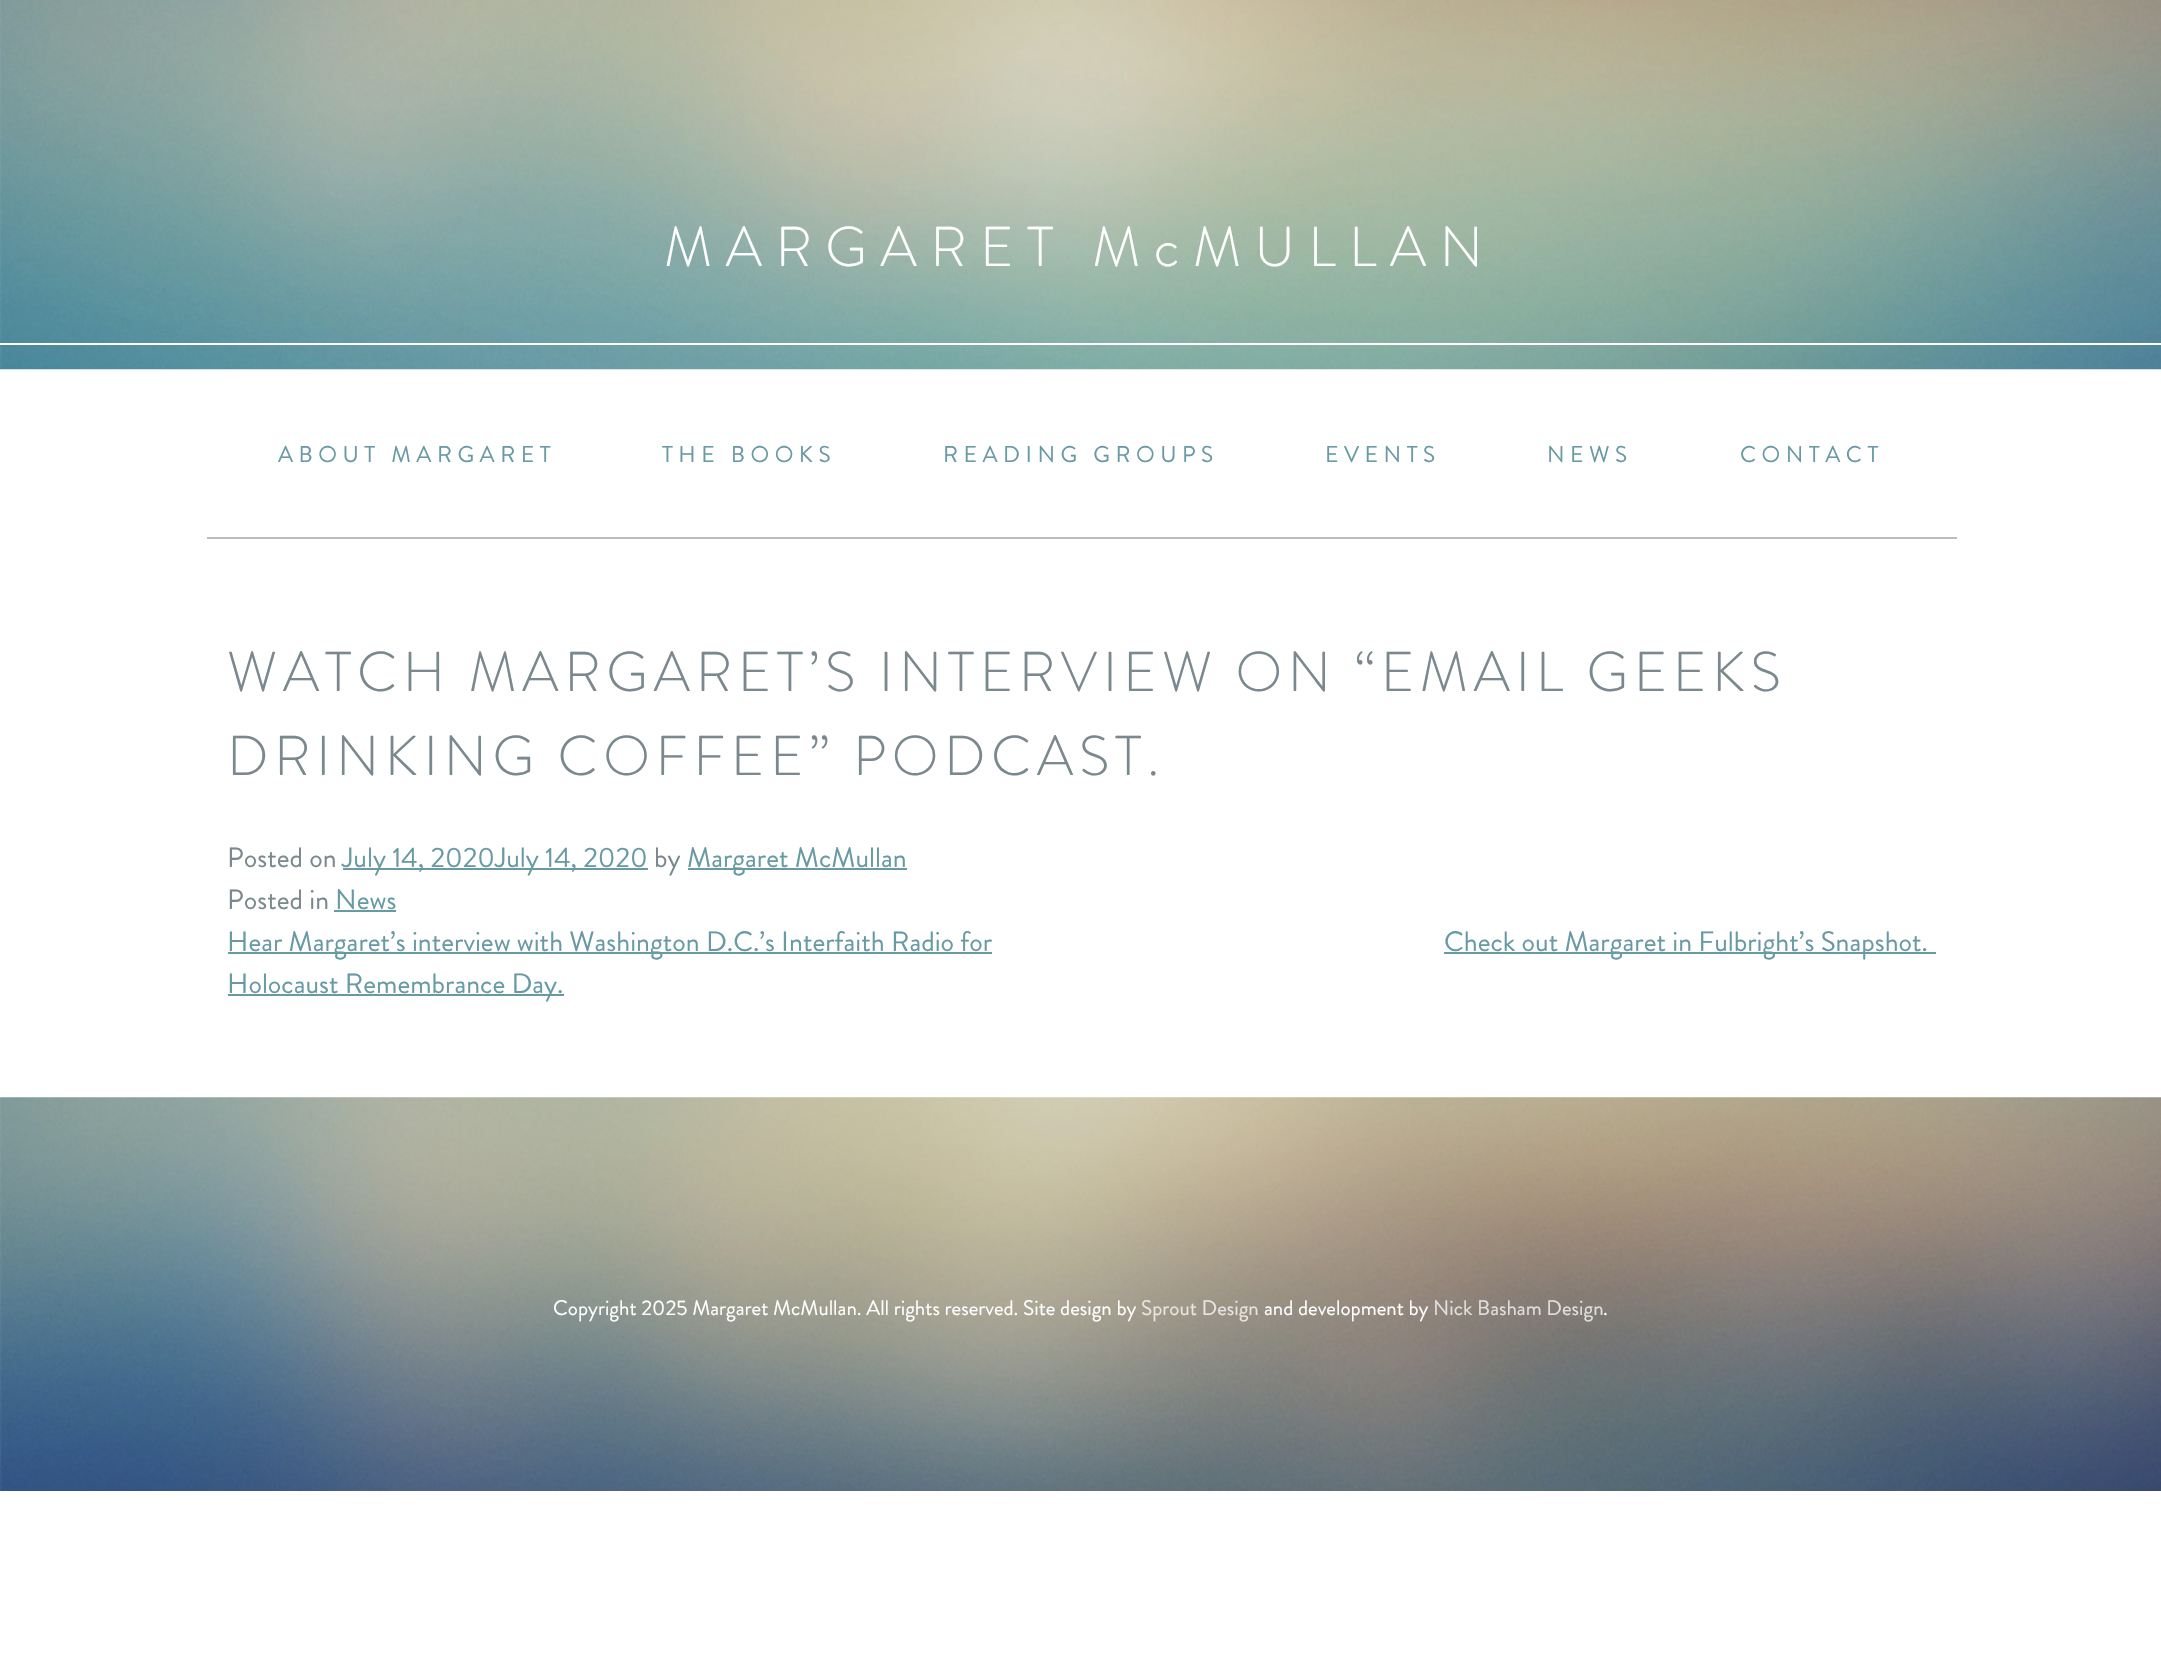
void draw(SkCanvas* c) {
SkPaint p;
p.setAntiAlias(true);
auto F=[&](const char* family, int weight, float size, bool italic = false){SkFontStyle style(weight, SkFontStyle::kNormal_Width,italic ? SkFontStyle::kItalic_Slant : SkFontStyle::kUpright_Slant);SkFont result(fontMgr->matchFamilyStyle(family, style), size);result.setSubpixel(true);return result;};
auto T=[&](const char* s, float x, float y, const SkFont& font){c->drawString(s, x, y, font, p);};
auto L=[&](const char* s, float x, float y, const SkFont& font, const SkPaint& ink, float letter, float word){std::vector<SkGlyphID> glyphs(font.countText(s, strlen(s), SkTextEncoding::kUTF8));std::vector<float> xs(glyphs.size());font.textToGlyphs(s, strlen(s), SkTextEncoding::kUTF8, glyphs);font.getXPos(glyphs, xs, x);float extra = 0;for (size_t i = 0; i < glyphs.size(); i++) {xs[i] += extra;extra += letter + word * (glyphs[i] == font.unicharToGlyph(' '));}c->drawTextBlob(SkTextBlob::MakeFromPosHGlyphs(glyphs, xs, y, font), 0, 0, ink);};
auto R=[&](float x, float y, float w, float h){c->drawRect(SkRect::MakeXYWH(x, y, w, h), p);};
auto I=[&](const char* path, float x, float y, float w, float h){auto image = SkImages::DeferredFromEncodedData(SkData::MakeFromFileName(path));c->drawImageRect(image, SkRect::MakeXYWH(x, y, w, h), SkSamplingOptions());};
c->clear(0xffffffff);
I("1.png",0,0,2161,370);
p.setColor(0xffffffff);
R(0,343,2161,2);
auto f1 = F("Brandon Grotesque",300,56);
L("MARGARET McMULLAN",664,266,f1,p,13.4,0);
p.setColor(0xffbdbcbc);
R(207,537,1750,2);
auto f2 = F("Brandon Grotesque",400,22.75);
p.setColor(0xff689aa4);
L("ABOUT MARGARET",278,462,f2,p,5.5,0);
L("THE BOOKS",662,462,f2,p,5.5,0);
L("READING GROUPS",943,462,f2,p,5.5,0);
L("EVENTS",1325,462,f2,p,5.5,0);
L("NEWS",1547,462,f2,p,5.5,0);
L("CONTACT",1740,462,f2,p,5.5,0);
p.setColor(0xff7b898f);
L("WATCH MARGARET’S INTERVIEW ON “EMAIL GEEKS",227,691,f1,p,5.6,0);
L("DRINKING COFFEE” PODCAST.",227,775,f1,p,5.6,0);
auto f3 = F("Brandon Grotesque",400,28);
T("Posted on",227,867,f3);
p.setColor(0xff689aa4);
R(343,868,305,2);
T("July 14, 2020July 14, 2020",342,867,f3);
p.setColor(0xff7b898f);
T("by",654,867,f3);
p.setColor(0xff689aa4);
R(688,868,219,2);
T("Margaret McMullan",687,867,f3);
p.setColor(0xff7b898f);
T("Posted in",227,909,f3);
p.setColor(0xff689aa4);
T("News",335,909,f3);
R(334,910,62,2);
R(228,952,764,2);
T("Hear Margaret’s interview with Washington D.C.’s Interfaith Radio for",227,951,f3);
R(228,994,336,2);
T("Holocaust Remembrance Day.",227,993,f3);
R(1444,952,492,2);
T("Check out Margaret in Fulbright’s Snapshot.",1444,951,f3);
I("2.png",0,1097,2161,394);
auto f4 = F("Brandon Grotesque",400,21);
p.setColor(0xffffffff);
T("Copyright 2025 Margaret McMullan. All rights reserved. Site design by",553,1315,f4);
p.setColor(0xffe6e5e1);
T("Sprout Design",1141,1315,f4);
p.setColor(0xffffffff);
T("and development by",1264,1315,f4);
p.setColor(0xffe1dfdd);
T("Nick Basham Design",1433,1315,f4);
p.setColor(0xffffffff);
T(".",1603,1315,f4);
}
